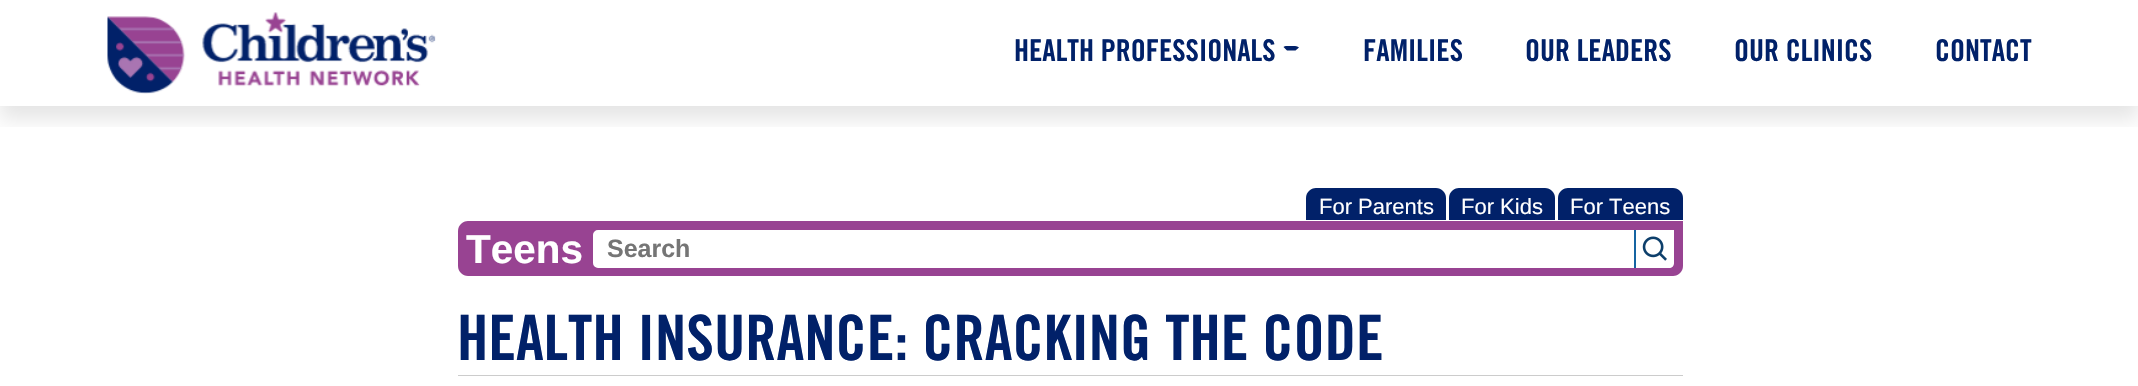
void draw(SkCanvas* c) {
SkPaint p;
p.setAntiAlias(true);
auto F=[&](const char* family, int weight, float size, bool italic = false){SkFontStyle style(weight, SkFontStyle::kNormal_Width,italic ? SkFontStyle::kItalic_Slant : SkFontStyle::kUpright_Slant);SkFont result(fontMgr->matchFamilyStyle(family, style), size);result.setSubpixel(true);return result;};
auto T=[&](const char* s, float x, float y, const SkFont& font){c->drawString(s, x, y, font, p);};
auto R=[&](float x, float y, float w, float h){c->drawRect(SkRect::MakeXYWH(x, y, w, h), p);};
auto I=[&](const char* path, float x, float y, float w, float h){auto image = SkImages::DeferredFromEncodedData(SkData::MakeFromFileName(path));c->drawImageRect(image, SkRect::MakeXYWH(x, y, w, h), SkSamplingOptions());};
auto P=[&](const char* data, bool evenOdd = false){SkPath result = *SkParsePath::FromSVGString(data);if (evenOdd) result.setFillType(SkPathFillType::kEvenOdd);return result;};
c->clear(0xffffffff);
c->save();
c->clipRect(SkRect::MakeXYWH(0,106,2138,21));
p.setColor(0x1a000000);
p.setMaskFilter(SkMaskFilter::MakeBlur(kNormal_SkBlurStyle, 9.5));
c->drawRect(SkRect::MakeXYWH(0,13,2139,106),p);
p.setMaskFilter(nullptr);
c->restore();
I("1.png",107,12,329,82);
auto f1 = F("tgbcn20",700,30);
p.setColor(0xff012169);
T("HEALTH PROFESSIONALS",1014,61,f1);
c->drawPath(P("M1283.5 47c1-1 1.5-1 3.5-1h4c2 0 6-.5 8 1.5l-3.5 3h-8.5z"),p);
T("FAMILIES",1363,61,f1);
T("OUR LEADERS",1525,61,f1);
T("OUR CLINICS",1734,61,f1);
T("CONTACT",1935,61,f1);
c->drawPath(P("M1316 188h120c5.5 0 10 4.5 10 10v22h-140v-22c0-5.5 4.5-10 10-10z"),p);
auto f2 = F("Liberation Sans",400,22);
p.setColor(0xffffffff);
T("For Parents",1319,214,f2);
p.setColor(0xff012169);
c->drawPath(P("M1459 188h86c5.5 0 10 4.5 10 10v22h-106v-22c0-5.5 4.5-10 10-10z"),p);
p.setColor(0xffffffff);
T("For Kids",1461,214,f2);
p.setColor(0xff012169);
c->drawPath(P("M1568 188h105c5.5 0 10 4.5 10 10v22h-125v-22c0-5.5 4.5-10 10-10z"),p);
p.setColor(0xffffffff);
T("For Teens",1570,214,f2);
p.setColor(0xff984392);
c->drawPath(P("M468 221h1215v45c0 5.5-4.5 10-10 10h-1205c-5.5 0-10-4.5-10-10v-35c0-5.5 4.5-10 10-10z"),p);
auto f3 = F("Liberation Sans",700,40.5);
p.setColor(0xffffffff);
T("Teens",466,263,f3);
c->drawPath(P("M598 234h1032v30h-1032c-.5 0-1-.5-1-1v-28c0-.5 .5-1 1-1z"),p);
p.setStroke(true);
p.setStrokeWidth(8);
c->drawPath(P("M598 234h1032v30h-1032c-.5 0-1-.5-1-1v-28c0-.5 .5-1 1-1z"),p);
auto f4 = F("Liberation Sans",700,25);
p.setStroke(false);
p.setColor(0xff757575);
T("Search",607,257,f4);
p.setColor(0xff1564a2);
R(1634,230,2,38);
p.setColor(0xffffffff);
c->drawPath(P("M1636 230h38v33c0 3-2 5-5 5h-33z"),p);
I("2.png",1642,236,25,25);
p.setColor(0xffcccccc);
R(458,375,1225,1);
auto f5 = F("tgbcn20",700,62.5);
p.setColor(0xff012169);
T("HEALTH INSURANCE: CRACKING THE CODE",457,360,f5);
}
